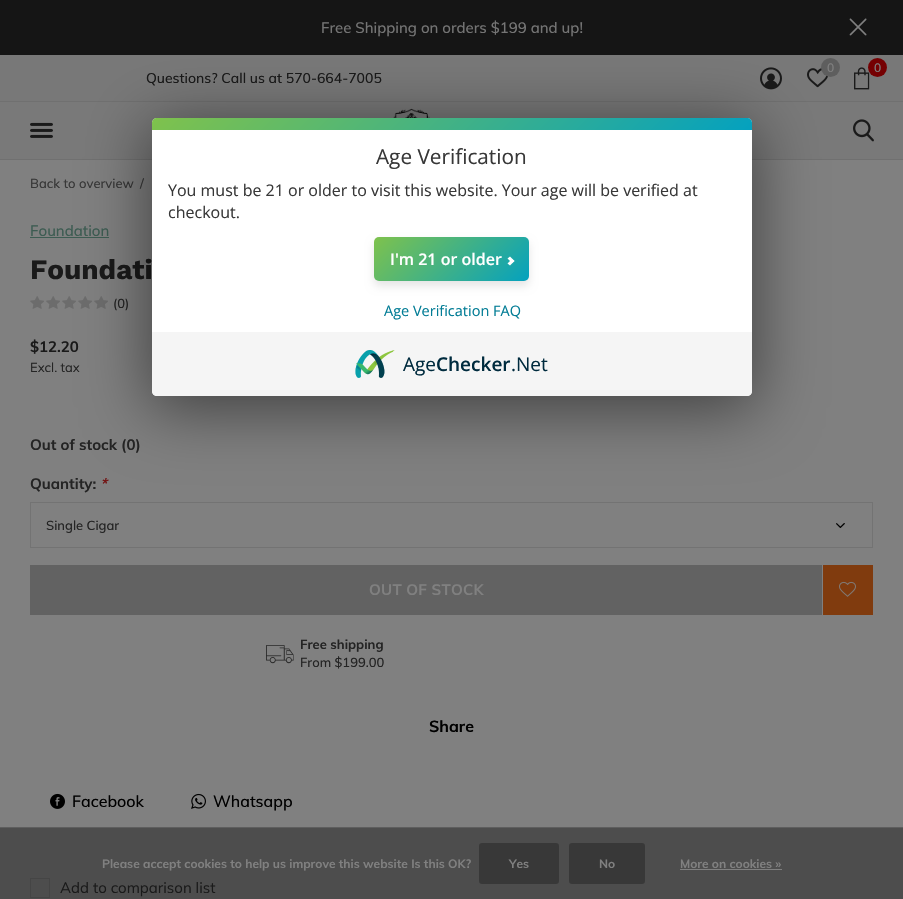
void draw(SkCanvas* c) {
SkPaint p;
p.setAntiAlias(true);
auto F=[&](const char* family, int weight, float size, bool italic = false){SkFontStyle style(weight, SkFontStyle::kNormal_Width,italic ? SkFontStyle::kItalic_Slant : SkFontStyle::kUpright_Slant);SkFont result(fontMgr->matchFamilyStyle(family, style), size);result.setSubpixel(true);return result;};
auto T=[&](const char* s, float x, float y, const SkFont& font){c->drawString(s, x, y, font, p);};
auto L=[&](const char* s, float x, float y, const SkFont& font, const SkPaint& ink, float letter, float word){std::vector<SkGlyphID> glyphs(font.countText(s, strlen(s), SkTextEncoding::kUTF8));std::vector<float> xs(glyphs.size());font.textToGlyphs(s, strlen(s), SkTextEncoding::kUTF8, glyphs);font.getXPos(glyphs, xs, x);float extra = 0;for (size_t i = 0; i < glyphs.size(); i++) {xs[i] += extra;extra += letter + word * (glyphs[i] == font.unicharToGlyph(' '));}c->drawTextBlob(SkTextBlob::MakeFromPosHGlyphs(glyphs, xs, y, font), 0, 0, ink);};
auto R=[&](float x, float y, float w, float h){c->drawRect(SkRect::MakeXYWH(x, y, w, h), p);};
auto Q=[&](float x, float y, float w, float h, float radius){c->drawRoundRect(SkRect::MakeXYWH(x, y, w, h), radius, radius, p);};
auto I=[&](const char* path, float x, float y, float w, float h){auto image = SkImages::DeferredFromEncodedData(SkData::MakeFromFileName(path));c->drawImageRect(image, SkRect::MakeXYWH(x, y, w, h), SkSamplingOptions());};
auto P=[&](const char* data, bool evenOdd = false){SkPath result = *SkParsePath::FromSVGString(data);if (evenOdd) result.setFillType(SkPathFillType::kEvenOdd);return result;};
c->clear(0xff808080);
p.setColor(0xff4d4d4d);
R(0,828,903,71);
p.setColor(0xff151515);
R(0,0,903,55);
auto f1 = F("Muli",500,15);
p.setColor(0xff747474);
T("Free Shipping on orders $199 and up!",321,33,f1);
I("1.png",849,18,18,18);
p.setColor(0xff787878);
R(0,55,903,46);
I("2.png",760,67,22,23);
I("3.png",807,68,21,20);
p.setColor(0xff5e5e5e);
c->drawCircle(830.5,67.5,9.5,p);
auto f2 = F("Muli",500,12);
p.setColor(0xff808080);
T("0",827,72,f2);
I("4.png",854,67,16,23);
p.setColor(0xff750002);
c->drawCircle(877.5,67.5,9.5,p);
p.setColor(0xff808080);
T("0",874,72,f2);
p.setColor(0xff797979);
R(0,102,903,57);
I("5.png",853,119,21,23);
p.setColor(0xff707070);
R(0,101,903,1);
auto f3 = F("Muli",500,14);
p.setColor(0xff1a1a1a);
T("Questions? Call us at 570-664-7005",146,83,f3);
p.setColor(0xff707070);
R(0,159,903,1);
I("6.png",393,108,37,10);
I("7.png",30,122,23,16);
auto f4 = F("Muli",500,13);
p.setColor(0xff383838);
T("Back to overview",30,188,f4);
T("/",140,188,f4);
p.setColor(0xff3d5c52);
T("Foundation",30,236,f1);
R(30,237,79,1);
auto f5 = F("Work Sans",700,28);
p.setColor(0xff1a1a1a);
T("Foundati",30,279,f5);
I("8.png",30,296,14,13);
I("8.png",46,296,14,13);
I("8.png",62,296,14,13);
I("8.png",78,296,14,13);
I("8.png",94,296,14,13);
p.setColor(0xff242424);
T("(0)",113,308,f4);
auto f6 = F("Muli",700,15);
p.setColor(0xff1a1a1a);
T("$12.20",30,352,f6);
auto f7 = F("Muli",400,13);
p.setColor(0xff242424);
T("Excl. tax",30,372,f7);
T("Out of stock (0)",30,450,f6);
T("Quantity:",30,489,f6);
auto f8 = F("Muli",700,15,true);
p.setColor(0xff731515);
T("*",100,489,f8);
I("9.png",836,523,9,5);
p.setStroke(true);
p.setStrokeWidth(1);
p.setColor(0xff737373);
c->drawRect(SkRect::MakeXYWH(30.5,502.5,842,45),p);
p.setStroke(false);
p.setColor(0xff242424);
T("Single Cigar",46,530,f4);
p.setColor(0xff626262);
R(30,565,792,50);
p.setColor(0xff808080);
L("OUT OF STOCK",369,595,f6,p,.25,0);
p.setColor(0xff803b0e);
R(823,565,50,50);
I("10.png",839,581,17,16);
I("11.png",266,645,28,19);
auto f9 = F("Muli",700,13);
p.setColor(0xff242424);
T("Free shipping",300,649,f9);
T("From $199.00",300,667,f4);
auto f10 = F("Muli",700,16);
p.setColor(0xff000000);
T("Share",429,732,f10);
I("12.png",50,793,15,16);
auto f11 = F("Muli",500,16);
T("Facebook",72,807,f11);
I("13.png",191,793,15,16);
T("Whatsapp",213,807,f11);
p.setStroke(true);
p.setColor(0xff454545);
c->drawRect(SkRect::MakeXYWH(30.5,878.5,19,19),p);
auto f12 = F("Muli",400,15);
p.setStroke(false);
p.setColor(0xff1a1a1a);
T("Add to comparison list",60,893,f12);
p.setColor(0x80000000);
p.setMaskFilter(SkMaskFilter::MakeBlur(kNormal_SkBlurStyle, 32));
c->drawRoundRect(SkRect::MakeXYWH(149,125,606,284),8,8,p);
p.setMaskFilter(nullptr);
p.setColor(0xffffffff);
Q(152,118,600,278,5);
{
const SkColor colors[] = {0xff7fc24c,0xff04a1bf};
const float stops[] = {0,1};
const SkPoint ends[] = {{299,-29}, {605,277}};
p.setShader(SkGradientShader::MakeLinear(ends, colors, stops, 2, SkTileMode::kClamp));
p.setAlpha(255);
}
c->drawPath(P("M157 118h590c3 0 5 2 5 5v7h-600v-7c0-3 2-5 5-5z"),p);
auto f13 = F("Open Sans",400,20.75);
p.setShader(nullptr);
p.setColor(0xff383838);
T("Age Verification",376,164,f13);
auto f14 = F("Open Sans",400,16);
T("You must be 21 or older to visit this website. Your age will be verified at",168,196,f14);
T("checkout.",168,218,f14);
p.setColor(0x1a000000);
p.setMaskFilter(SkMaskFilter::MakeBlur(kNormal_SkBlurStyle, 4));
c->drawRoundRect(SkRect::MakeXYWH(374,242,155,44),5,5,p);
p.setMaskFilter(nullptr);
{
const SkColor colors[] = {0xff7fc24c,0xff04a1bf};
const float stops[] = {0,1};
const SkPoint ends[] = {{402,209}, {501,309}};
p.setShader(SkGradientShader::MakeLinear(ends, colors, stops, 2, SkTileMode::kClamp));
p.setAlpha(255);
}
Q(374,237,155,44,5);
auto f15 = F("Open Sans",600,16);
p.setShader(nullptr);
p.setColor(0xffffffff);
T("I'm 21 or older",390,265,f15);
c->drawPath(P("M507.5 258.5l2.5-2l4.5 4.5l-2.5 2z"),p);
c->drawPath(P("M507.5 263.5l4.5-4.5l2.5 2l-4.5 4.5z"),p);
auto f16 = F("Open Sans",400,14.5);
p.setColor(0xff037d96);
T("Age Verification FAQ",384,316,f16);
p.setColor(0xfff5f5f5);
c->drawPath(P("M152 332h600v59c0 3-2 5-5 5h-590c-3 0-5-2-5-5z"),p);
I("14.png",355,350,40,28);
auto f17 = F("Open Sans",400,19);
p.setColor(0xff002b3e);
T("Age",403,371,f17);
auto f18 = F("Open Sans",600,19);
T("Checker",436,371,f18);
T(".Net",511,371,f17);
p.setColor(0xff5e5e5e);
R(0,827,903,1);
auto f19 = F("Muli",700,12);
p.setColor(0xff808080);
T("Please accept cookies to help us improve this website Is this OK?",102,868,f19);
p.setColor(0xff383838);
Q(479,843,80,41,3);
p.setColor(0xff808080);
T("Yes",509,868,f19);
p.setColor(0xff383838);
Q(569,843,76,41,3);
p.setColor(0xff808080);
T("No",599,868,f19);
T("More on cookies »",680,868,f19);
R(680,869,102,1);
}
